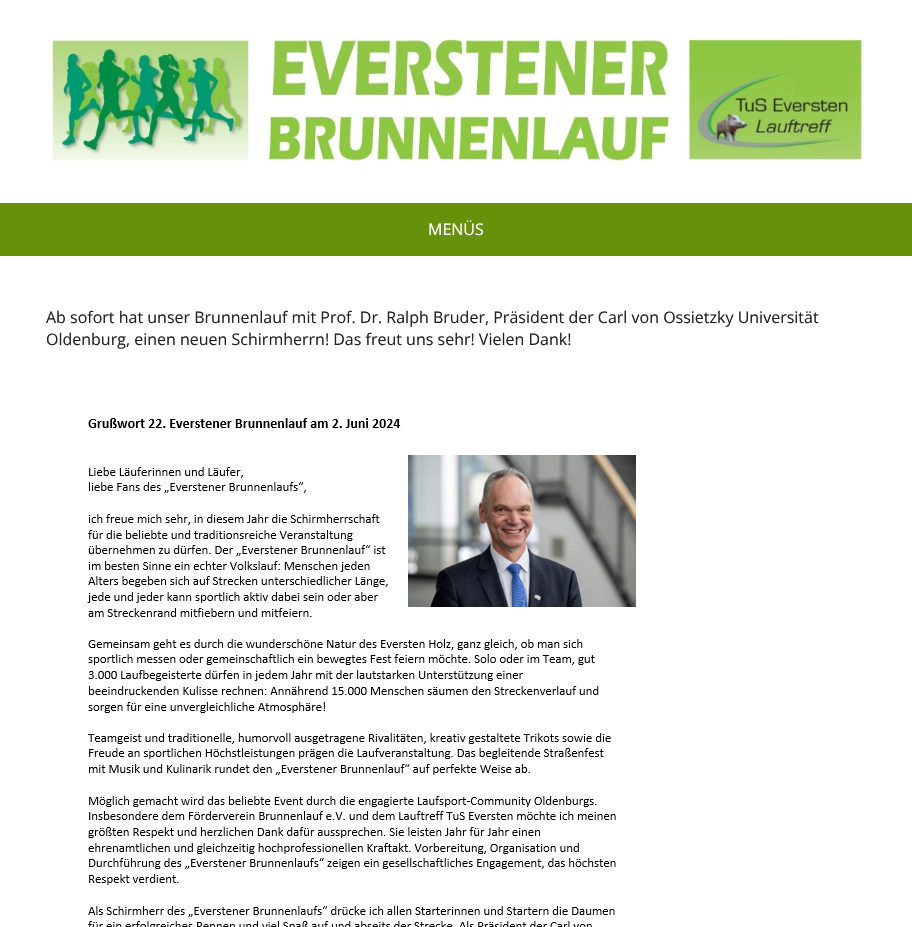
void draw(SkCanvas* c) {
SkPaint p;
p.setAntiAlias(true);
auto F=[&](const char* family, int weight, float size, bool italic = false){SkFontStyle style(weight, SkFontStyle::kNormal_Width,italic ? SkFontStyle::kItalic_Slant : SkFontStyle::kUpright_Slant);SkFont result(fontMgr->matchFamilyStyle(family, style), size);result.setSubpixel(true);return result;};
auto T=[&](const char* s, float x, float y, const SkFont& font){c->drawString(s, x, y, font, p);};
auto R=[&](float x, float y, float w, float h){c->drawRect(SkRect::MakeXYWH(x, y, w, h), p);};
auto I=[&](const char* path, float x, float y, float w, float h){auto image = SkImages::DeferredFromEncodedData(SkData::MakeFromFileName(path));c->drawImageRect(image, SkRect::MakeXYWH(x, y, w, h), SkSamplingOptions());};
c->clear(0xffffffff);
I("1.png",51,38,813,124);
p.setColor(0xff669108);
R(0,203,912,53);
auto f1 = F("Open Sans",400,16);
p.setColor(0xffffffff);
T("MENÜS",428,235,f1);
p.setColor(0xff222222);
T("Ab sofort hat unser Brunnenlauf mit Prof. Dr. Ralph Bruder, Präsident der Carl von Ossietzky Universität",46,323,f1);
T("Oldenburg, einen neuen Schirmherrn! Das freut uns sehr! Vielen Dank!",46,345,f1);
I("2.png",87,415,551,512);
}
